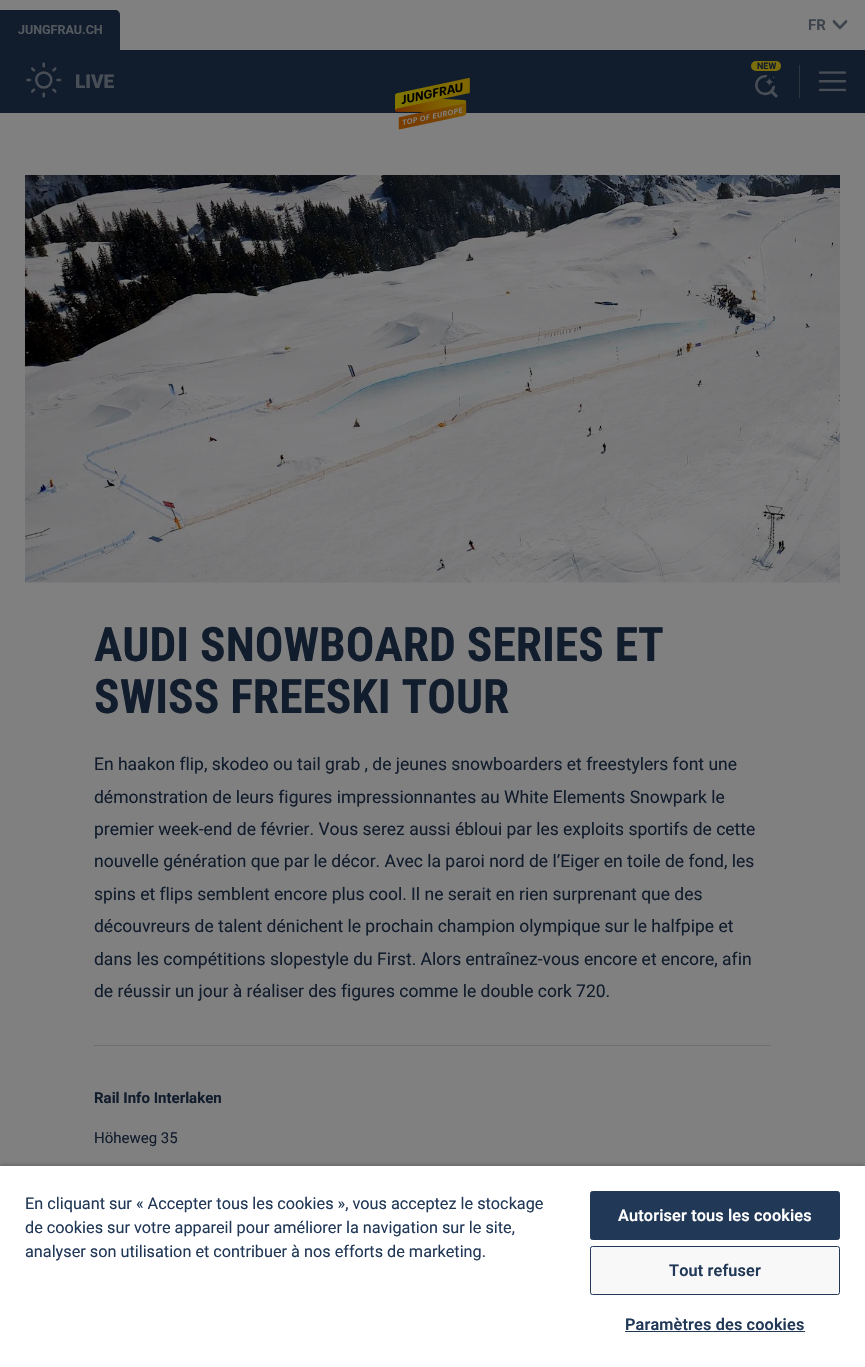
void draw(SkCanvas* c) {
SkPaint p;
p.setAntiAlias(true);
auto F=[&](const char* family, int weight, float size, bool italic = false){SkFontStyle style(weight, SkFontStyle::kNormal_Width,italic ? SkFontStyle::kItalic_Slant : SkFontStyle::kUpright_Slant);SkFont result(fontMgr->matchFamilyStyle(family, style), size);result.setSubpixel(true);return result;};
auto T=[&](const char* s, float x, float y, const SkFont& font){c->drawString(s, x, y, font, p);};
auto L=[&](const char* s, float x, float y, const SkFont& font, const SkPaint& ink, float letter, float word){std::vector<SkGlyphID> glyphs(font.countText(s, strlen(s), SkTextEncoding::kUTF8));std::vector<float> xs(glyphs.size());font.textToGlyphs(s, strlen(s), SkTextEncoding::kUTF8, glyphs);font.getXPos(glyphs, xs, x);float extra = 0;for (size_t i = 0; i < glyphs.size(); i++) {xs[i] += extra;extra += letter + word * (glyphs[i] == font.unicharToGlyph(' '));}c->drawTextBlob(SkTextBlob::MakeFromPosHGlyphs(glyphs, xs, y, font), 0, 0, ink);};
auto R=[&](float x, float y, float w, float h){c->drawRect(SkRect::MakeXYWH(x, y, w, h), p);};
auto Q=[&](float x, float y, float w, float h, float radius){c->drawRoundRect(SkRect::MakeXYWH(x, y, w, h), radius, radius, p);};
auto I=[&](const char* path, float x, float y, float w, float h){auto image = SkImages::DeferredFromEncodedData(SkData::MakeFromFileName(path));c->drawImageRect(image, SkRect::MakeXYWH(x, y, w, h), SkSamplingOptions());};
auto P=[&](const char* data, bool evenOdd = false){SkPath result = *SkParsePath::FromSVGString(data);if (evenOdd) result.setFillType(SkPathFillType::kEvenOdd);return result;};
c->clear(0xff808080);
p.setColor(0xff111c2c);
c->drawPath(P("M0 10h115c3 0 5 2 5 5v35h-120z"),p);
auto f1 = F("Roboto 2",700,12.5);
p.setColor(0xff53585e);
T("JUNGFRAU.CH",18,34,f1);
auto f2 = F("Roboto 2",700,15);
p.setColor(0xff3d444d);
T("FR",808,30,f2);
I("1.png",832,20,16,10);
p.setColor(0xff111c2c);
R(0,50,865,63);
p.setColor(0xff7c6d0c);
Q(751,61,30,10,5);
auto f3 = F("Roboto 2",700,9);
p.setColor(0xff111c2c);
T("NEW",757,69,f3);
I("2.png",755,75,23,23);
p.setColor(0xff2d3541);
R(799,65,1,33);
I("3.png",818,71,29,21);
I("4.png",26,62,36,36);
auto f4 = F("Roboto",900,19);
p.setColor(0xff484e56);
T("LIVE",75,88,f4);
I("5.png",395,78,75,52);
I("6.png",25,175,815,408);
p.setColor(0xff6f6f6f);
R(94,1045,677,1);
auto f5 = F("Roboto",700,47.5);
p.setColor(0xff111c2c);
T("AUDI SNOWBOARD SERIES ET",94,661,f5);
T("SWISS FREESKI TOUR",94,713,f5);
auto f6 = F("Roboto",400,17.5);
T("En haakon flip, skodeo ou tail grab , de jeunes snowboarders et freestylers font une",94,770,f6);
T("démonstration de leurs figures impressionnantes au White Elements Snowpark le",94,803,f6);
T("premier week-end de février. Vous serez aussi ébloui par les exploits sportifs de cette",94,835,f6);
T("nouvelle génération que par le décor. Avec la paroi nord de l’Eiger en toile de fond, les",94,867,f6);
T("spins et flips semblent encore plus cool. Il ne serait en rien surprenant que des",94,900,f6);
T("découvreurs de talent dénichent le prochain champion olympique sur le halfpipe et",94,932,f6);
T("dans les compétitions slopestyle du First. Alors entraînez-vous encore et encore, afin",94,965,f6);
T("de réussir un jour à réaliser des figures comme le double cork 720.",94,997,f6);
T("Rail Info Interlaken",94,1103,f2);
auto f7 = F("Roboto",400,15);
T("Höheweg 35",94,1143,f7);
p.setColor(0x59000000);
p.setMaskFilter(SkMaskFilter::MakeBlur(kNormal_SkBlurStyle, 2.5));
c->drawRect(SkRect::MakeXYWH(0,1166,865,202),p);
p.setMaskFilter(nullptr);
p.setColor(0xffffffff);
R(0,1166,865,201);
auto f8 = F("Roboto",400,16.25);
p.setColor(0xff213857);
T("En cliquant sur « Accepter tous les cookies », vous acceptez le stockage",25,1209,f8);
T("de cookies sur votre appareil pour améliorer la navigation sur le site,",25,1233,f8);
T("analyser son utilisation et contribuer à nos efforts de marketing.",25,1257,f8);
c->drawRoundRect(SkRect::MakeXYWH(590.5,1191.5,249,48),2,2,p);
p.setStroke(true);
p.setStrokeWidth(1);
c->drawRoundRect(SkRect::MakeXYWH(590.5,1191.5,249,48),2,2,p);
auto f9 = F("Roboto",600,16.25);
p.setStroke(false);
p.setColor(0xffffffff);
L("Autoriser tous les cookies",618,1221,f9,p,.15,0);
p.setColor(0xfff8f8f8);
c->drawRoundRect(SkRect::MakeXYWH(590.5,1246.5,249,48),2,2,p);
p.setStroke(true);
p.setColor(0xff213857);
c->drawRoundRect(SkRect::MakeXYWH(590.5,1246.5,249,48),2,2,p);
p.setStroke(false);
L("Tout refuser",669,1276,f9,p,.15,0);
L("Paramètres des cookies",625,1330,f9,p,.15,0);
R(625,1331,180,1);
}
